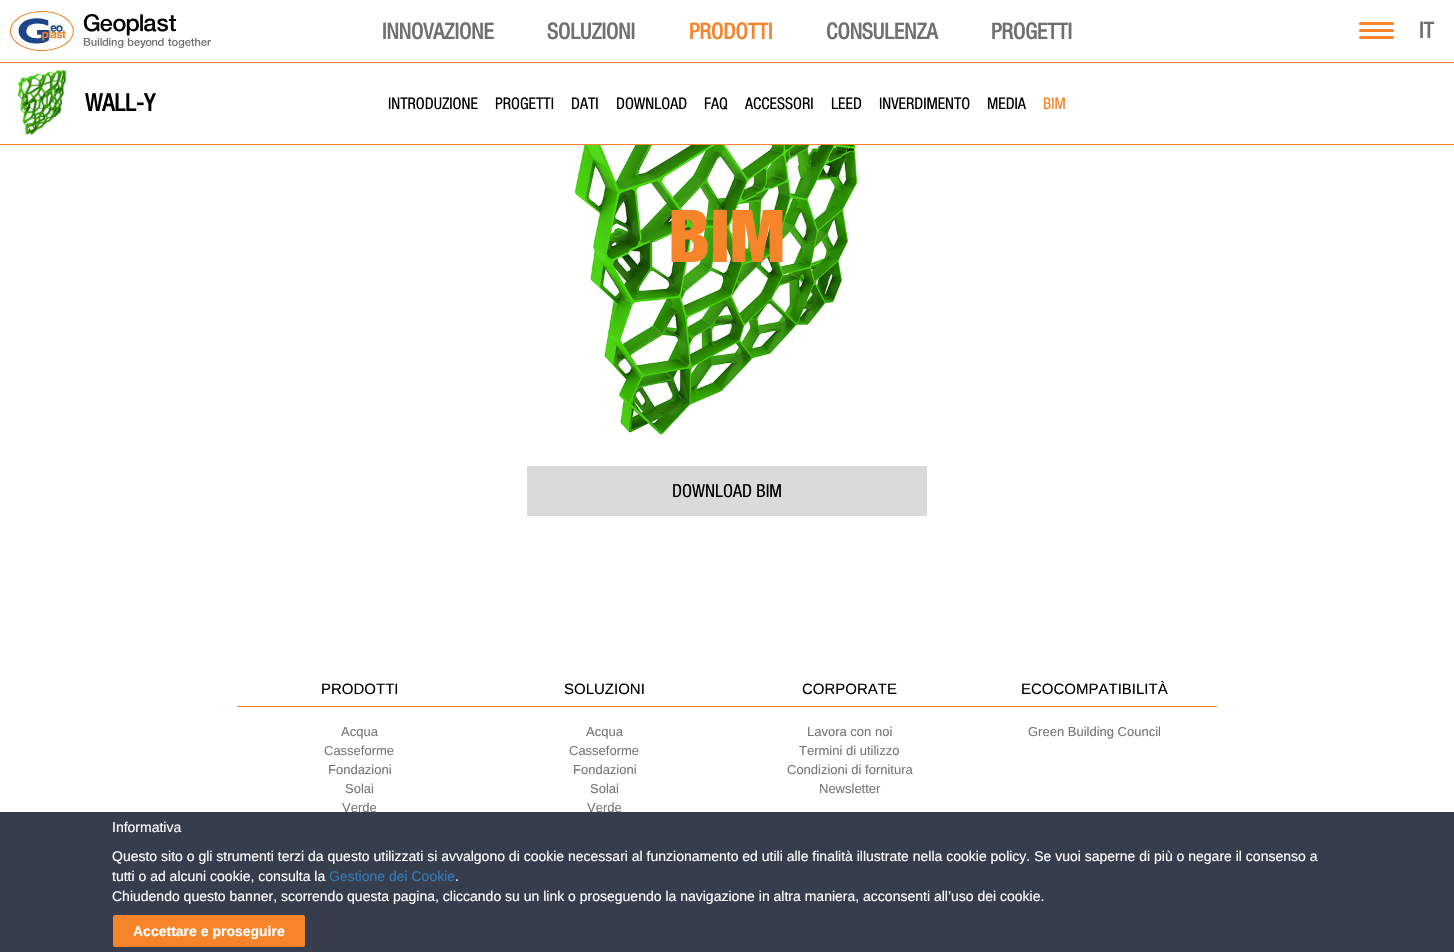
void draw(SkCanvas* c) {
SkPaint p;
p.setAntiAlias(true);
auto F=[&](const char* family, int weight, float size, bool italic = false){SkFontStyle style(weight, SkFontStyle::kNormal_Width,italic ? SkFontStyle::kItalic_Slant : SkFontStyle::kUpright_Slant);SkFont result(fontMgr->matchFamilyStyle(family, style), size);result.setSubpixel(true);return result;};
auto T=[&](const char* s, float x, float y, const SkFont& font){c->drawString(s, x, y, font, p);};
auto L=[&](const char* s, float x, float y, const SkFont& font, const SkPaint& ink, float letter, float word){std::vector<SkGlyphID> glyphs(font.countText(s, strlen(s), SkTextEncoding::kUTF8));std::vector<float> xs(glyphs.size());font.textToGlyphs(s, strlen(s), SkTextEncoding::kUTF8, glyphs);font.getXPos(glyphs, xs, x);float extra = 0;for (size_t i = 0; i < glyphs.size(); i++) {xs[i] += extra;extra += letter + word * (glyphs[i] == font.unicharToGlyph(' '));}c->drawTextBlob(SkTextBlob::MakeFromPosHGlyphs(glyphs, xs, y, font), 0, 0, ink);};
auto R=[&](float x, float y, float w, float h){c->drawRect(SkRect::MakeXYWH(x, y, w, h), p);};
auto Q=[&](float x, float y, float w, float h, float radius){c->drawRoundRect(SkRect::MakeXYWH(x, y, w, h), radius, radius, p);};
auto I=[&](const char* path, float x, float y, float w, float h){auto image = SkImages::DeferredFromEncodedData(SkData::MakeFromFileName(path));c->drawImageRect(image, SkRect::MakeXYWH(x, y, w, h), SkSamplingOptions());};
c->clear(0xffffffff);
p.setColor(0xfff5842b);
R(0,62,1454,1);
I("1.png",10,11,201,40);
auto f1 = F("Helvetica Neue",700,22);
p.setColor(0xff707070);
T("INNOVAZIONE",382,39,f1);
T("SOLUZIONI",547,39,f1);
p.setColor(0xfff5842b);
T("PRODOTTI",689,39,f1);
p.setColor(0xff707070);
T("CONSULENZA",826,39,f1);
T("PROGETTI",991,39,f1);
p.setColor(0xfff5842b);
Q(1359,29,35,3,1.5);
Q(1359,22,35,3,1.5);
Q(1359,36,35,3,1.5);
p.setColor(0xff707070);
T("IT",1419,38,f1);
p.setColor(0xfff5842b);
R(0,144,1454,1);
I("2.png",17,70,50,65);
auto f2 = F("Helvetica Neue",700,24);
p.setColor(0xff000000);
T("WALL-Y",85,111,f2);
auto f3 = F("Helvetica Neue",400,16);
T("INTRODUZIONE",388,109,f3);
T("PROGETTI",495,109,f3);
T("DATI",571,109,f3);
T("DOWNLOAD",616,109,f3);
T("FAQ",704,109,f3);
T("ACCESSORI",745,109,f3);
T("LEED",831,109,f3);
T("INVERDIMENTO",879,109,f3);
T("MEDIA",987,109,f3);
p.setColor(0xfff5842b);
T("BIM",1043,109,f3);
I("3.png",574,145,284,290);
auto f4 = F("Helvetica Neue",900,73);
L("BIM",668,262,f4,p,.5,0);
p.setColor(0xffdadada);
R(527,466,400,50);
auto f5 = F("Helvetica Neue",400,18);
p.setColor(0xff000000);
T("DOWNLOAD BIM",672,497,f5);
p.setColor(0xfff5842b);
R(237,706,980,1);
auto f6 = F("Liberation Sans",400,15);
p.setColor(0xff000000);
T("PRODOTTI",321,694,f6);
auto f7 = F("Liberation Sans",400,13);
p.setColor(0xff767676);
T("Acqua",341,736,f7);
T("Casseforme",324,755,f7);
T("Fondazioni",328,774,f7);
T("Solai",345,793,f7);
T("Verde",342,812,f7);
p.setColor(0xff000000);
T("SOLUZIONI",564,694,f6);
p.setColor(0xff767676);
T("Acqua",586,736,f7);
T("Casseforme",569,755,f7);
T("Fondazioni",573,774,f7);
T("Solai",590,793,f7);
T("Verde",587,812,f7);
p.setColor(0xff000000);
T("CORPORATE",802,694,f6);
p.setColor(0xff767676);
T("Lavora con noi",807,736,f7);
T("Termini di utilizzo",799,755,f7);
T("Condizioni di fornitura",787,774,f7);
T("Newsletter",819,793,f7);
p.setColor(0xff000000);
T("ECOCOMPATIBILITÀ",1021,694,f6);
p.setColor(0xff767676);
T("Green Building Council",1028,736,f7);
p.setColor(0xff363d4d);
R(0,812,1454,140);
auto f8 = F("Liberation Sans",400,14);
p.setColor(0xffffffff);
T("Informativa",112,832,f8);
T("Questo sito o gli strumenti terzi da questo utilizzati si avvalgono di cookie necessari al funzionamento ed utili alle finalità illustrate nella cookie policy. Se vuoi saperne di più o negare il consenso a",112,861,f8);
T("tutti o ad alcuni cookie, consulta la",112,881,f8);
p.setColor(0xff337ab7);
T("Gestione dei Cookie",329,881,f8);
p.setColor(0xffffffff);
T(".",455,881,f8);
T("Chiudendo questo banner, scorrendo questa pagina, cliccando su un link o proseguendo la navigazione in altra maniera, acconsenti all’uso dei cookie.",112,901,f8);
p.setColor(0xfff5842b);
Q(113,915,192,32,2);
auto f9 = F("Liberation Sans",700,14);
p.setColor(0xffffffff);
T("Accettare e proseguire",133,936,f9);
}
